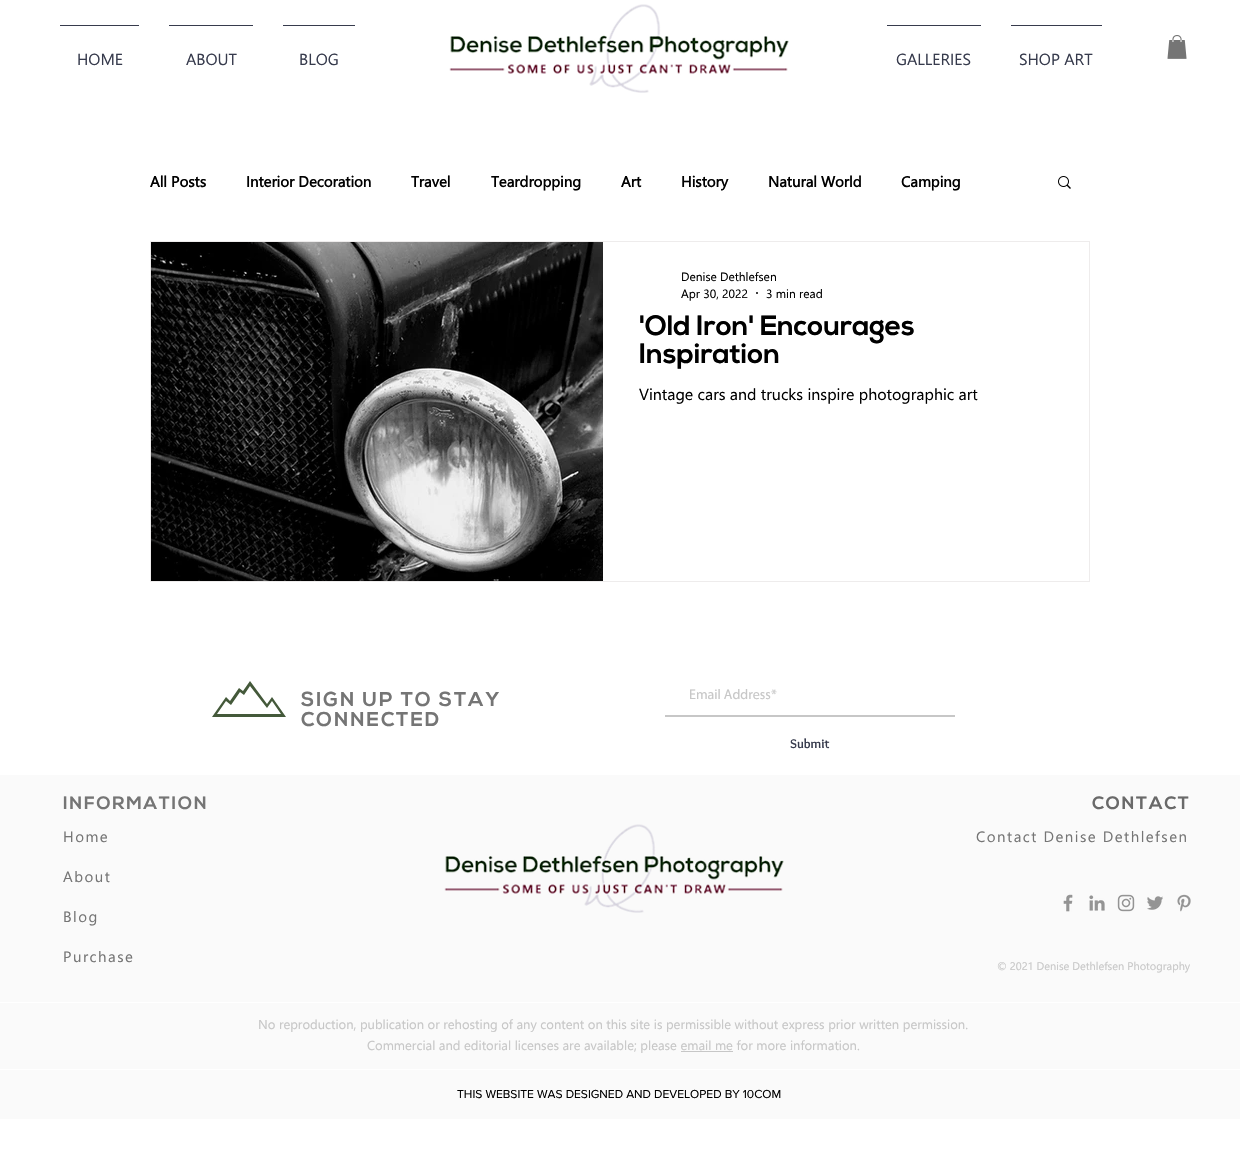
void draw(SkCanvas* c) {
SkPaint p;
p.setAntiAlias(true);
auto F=[&](const char* family, int weight, float size, bool italic = false){SkFontStyle style(weight, SkFontStyle::kNormal_Width,italic ? SkFontStyle::kItalic_Slant : SkFontStyle::kUpright_Slant);SkFont result(fontMgr->matchFamilyStyle(family, style), size);result.setSubpixel(true);return result;};
auto T=[&](const char* s, float x, float y, const SkFont& font){c->drawString(s, x, y, font, p);};
auto L=[&](const char* s, float x, float y, const SkFont& font, const SkPaint& ink, float letter, float word){std::vector<SkGlyphID> glyphs(font.countText(s, strlen(s), SkTextEncoding::kUTF8));std::vector<float> xs(glyphs.size());font.textToGlyphs(s, strlen(s), SkTextEncoding::kUTF8, glyphs);font.getXPos(glyphs, xs, x);float extra = 0;for (size_t i = 0; i < glyphs.size(); i++) {xs[i] += extra;extra += letter + word * (glyphs[i] == font.unicharToGlyph(' '));}c->drawTextBlob(SkTextBlob::MakeFromPosHGlyphs(glyphs, xs, y, font), 0, 0, ink);};
auto R=[&](float x, float y, float w, float h){c->drawRect(SkRect::MakeXYWH(x, y, w, h), p);};
auto I=[&](const char* path, float x, float y, float w, float h){auto image = SkImages::DeferredFromEncodedData(SkData::MakeFromFileName(path));c->drawImageRect(image, SkRect::MakeXYWH(x, y, w, h), SkSamplingOptions());};
auto P=[&](const char* data, bool evenOdd = false){SkPath result = *SkParsePath::FromSVGString(data);if (evenOdd) result.setFillType(SkPathFillType::kEvenOdd);return result;};
c->clear(0xffffffff);
p.setColor(0xff373b4d);
R(60,25,79,1);
auto f1 = F("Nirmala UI",400,16);
T("HOME",77,65,f1);
R(169,25,84,1);
T("ABOUT",186,65,f1);
R(283,25,72,1);
T("BLOG",299,65,f1);
I("1.png",449,4,340,89);
R(887,25,94,1);
auto f2 = F("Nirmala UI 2",400,16);
T("GALLERIES",896,65,f2);
R(1011,25,91,1);
T("SHOP ART",1019,65,f2);
I("2.png",1167,35,20,24);
auto f3 = F("Nirmala UI",700,15);
p.setColor(0xff000000);
T("All Posts",150,187,f3);
T("Interior Decoration",246,187,f3);
T("Travel",411,187,f3);
T("Teardropping",491,187,f3);
T("Art",621,187,f3);
T("History",681,187,f3);
T("Natural World",768,187,f3);
T("Camping",901,187,f3);
I("3.png",1058,176,13,13);
p.setStroke(true);
p.setStrokeWidth(1);
p.setColor(0xffeeecec);
c->drawRect(SkRect::MakeXYWH(150.5,241.5,939,340),p);
I("4.png",151,242,452,339);
auto f4 = F("Nirmala UI",400,12);
p.setStroke(false);
p.setColor(0xff000000);
T("Denise Dethlefsen",681,281,f4);
T("Apr 30, 2022",681,298,f4);
c->drawCircle(757,293,1,p);
T("3 min read",766,298,f4);
auto f5 = F("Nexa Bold",700,28);
T("'Old Iron' Encourages",639,335,f5);
T("Inspiration",639,363,f5);
T("Vintage cars and trucks inspire photographic art",639,400,f1);
p.setColor(0xff44593a);
c->drawPath(P("M286 717h-74l14-20l4 4l9-13l4 3l7-10l17 23l5-7zm-69-3h64l-9-13l-5 7l-17-22l-6 9l-4-3l-9 13l-5-4z"),p);
auto f6 = F("Nexa Bold",700,20);
p.setColor(0xff757575);
L("SIGN UP TO STAY",301,706,f6,p,2,0);
L("CONNECTED",301,726,f6,p,2,0);
p.setColor(0xffc7c7c7);
R(665,715,290,2);
auto f7 = F("Myriad",400,14);
T("Email Address*",689,699,f7);
auto f8 = F("Overlock",700,13);
p.setColor(0xff373b4d);
T("Submit",790,748,f8);
p.setColor(0xfffafafa);
R(0,775,1240,227);
auto f9 = F("Nexa Bold",700,18);
p.setColor(0xff757575);
L("INFORMATION",63,809,f9,p,1.75,0);
auto f10 = F("Nirmala UI",400,15);
L("Home",63,842,f10,p,1.5,0);
L("About",63,882,f10,p,1.5,0);
L("Blog",63,922,f10,p,1.5,0);
L("Purchase",63,962,f10,p,1.5,0);
I("5.png",444,824,340,89);
p.setColor(0xff696969);
L("CONTACT",1092,809,f9,p,1.75,0);
p.setColor(0xff757575);
L("Contact Denise Dethlefsen",976,842,f10,p,1.5,0);
I("6.png",1063,894,10,18);
I("7.png",1089,895,16,16);
I("8.png",1117,894,18,18);
I("9.png",1147,896,16,14);
I("10.png",1177,894,14,18);
auto f11 = F("Nirmala UI",400,11);
p.setColor(0xffc7c7c7);
T("© 2021 Denise Dethlefsen Photography",997,970,f11);
p.setColor(0xfffafafa);
R(0,1003,1240,66);
auto f12 = F("Nirmala UI",400,13);
p.setColor(0xffc7c7c7);
T("No reproduction, publication or rehosting of any content on this site is permissible without express prior written permission.",258,1029,f12);
T("Commercial and editorial licenses are available; please email me for more information.",367,1050,f12);
R(681,1051,52,1);
p.setColor(0xfffafafa);
R(0,1070,1240,49);
auto f13 = F("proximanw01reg",400,12);
p.setColor(0xff000000);
T("THIS WEBSITE WAS DESIGNED AND DEVELOPED BY 10COM",457,1098,f13);
}
